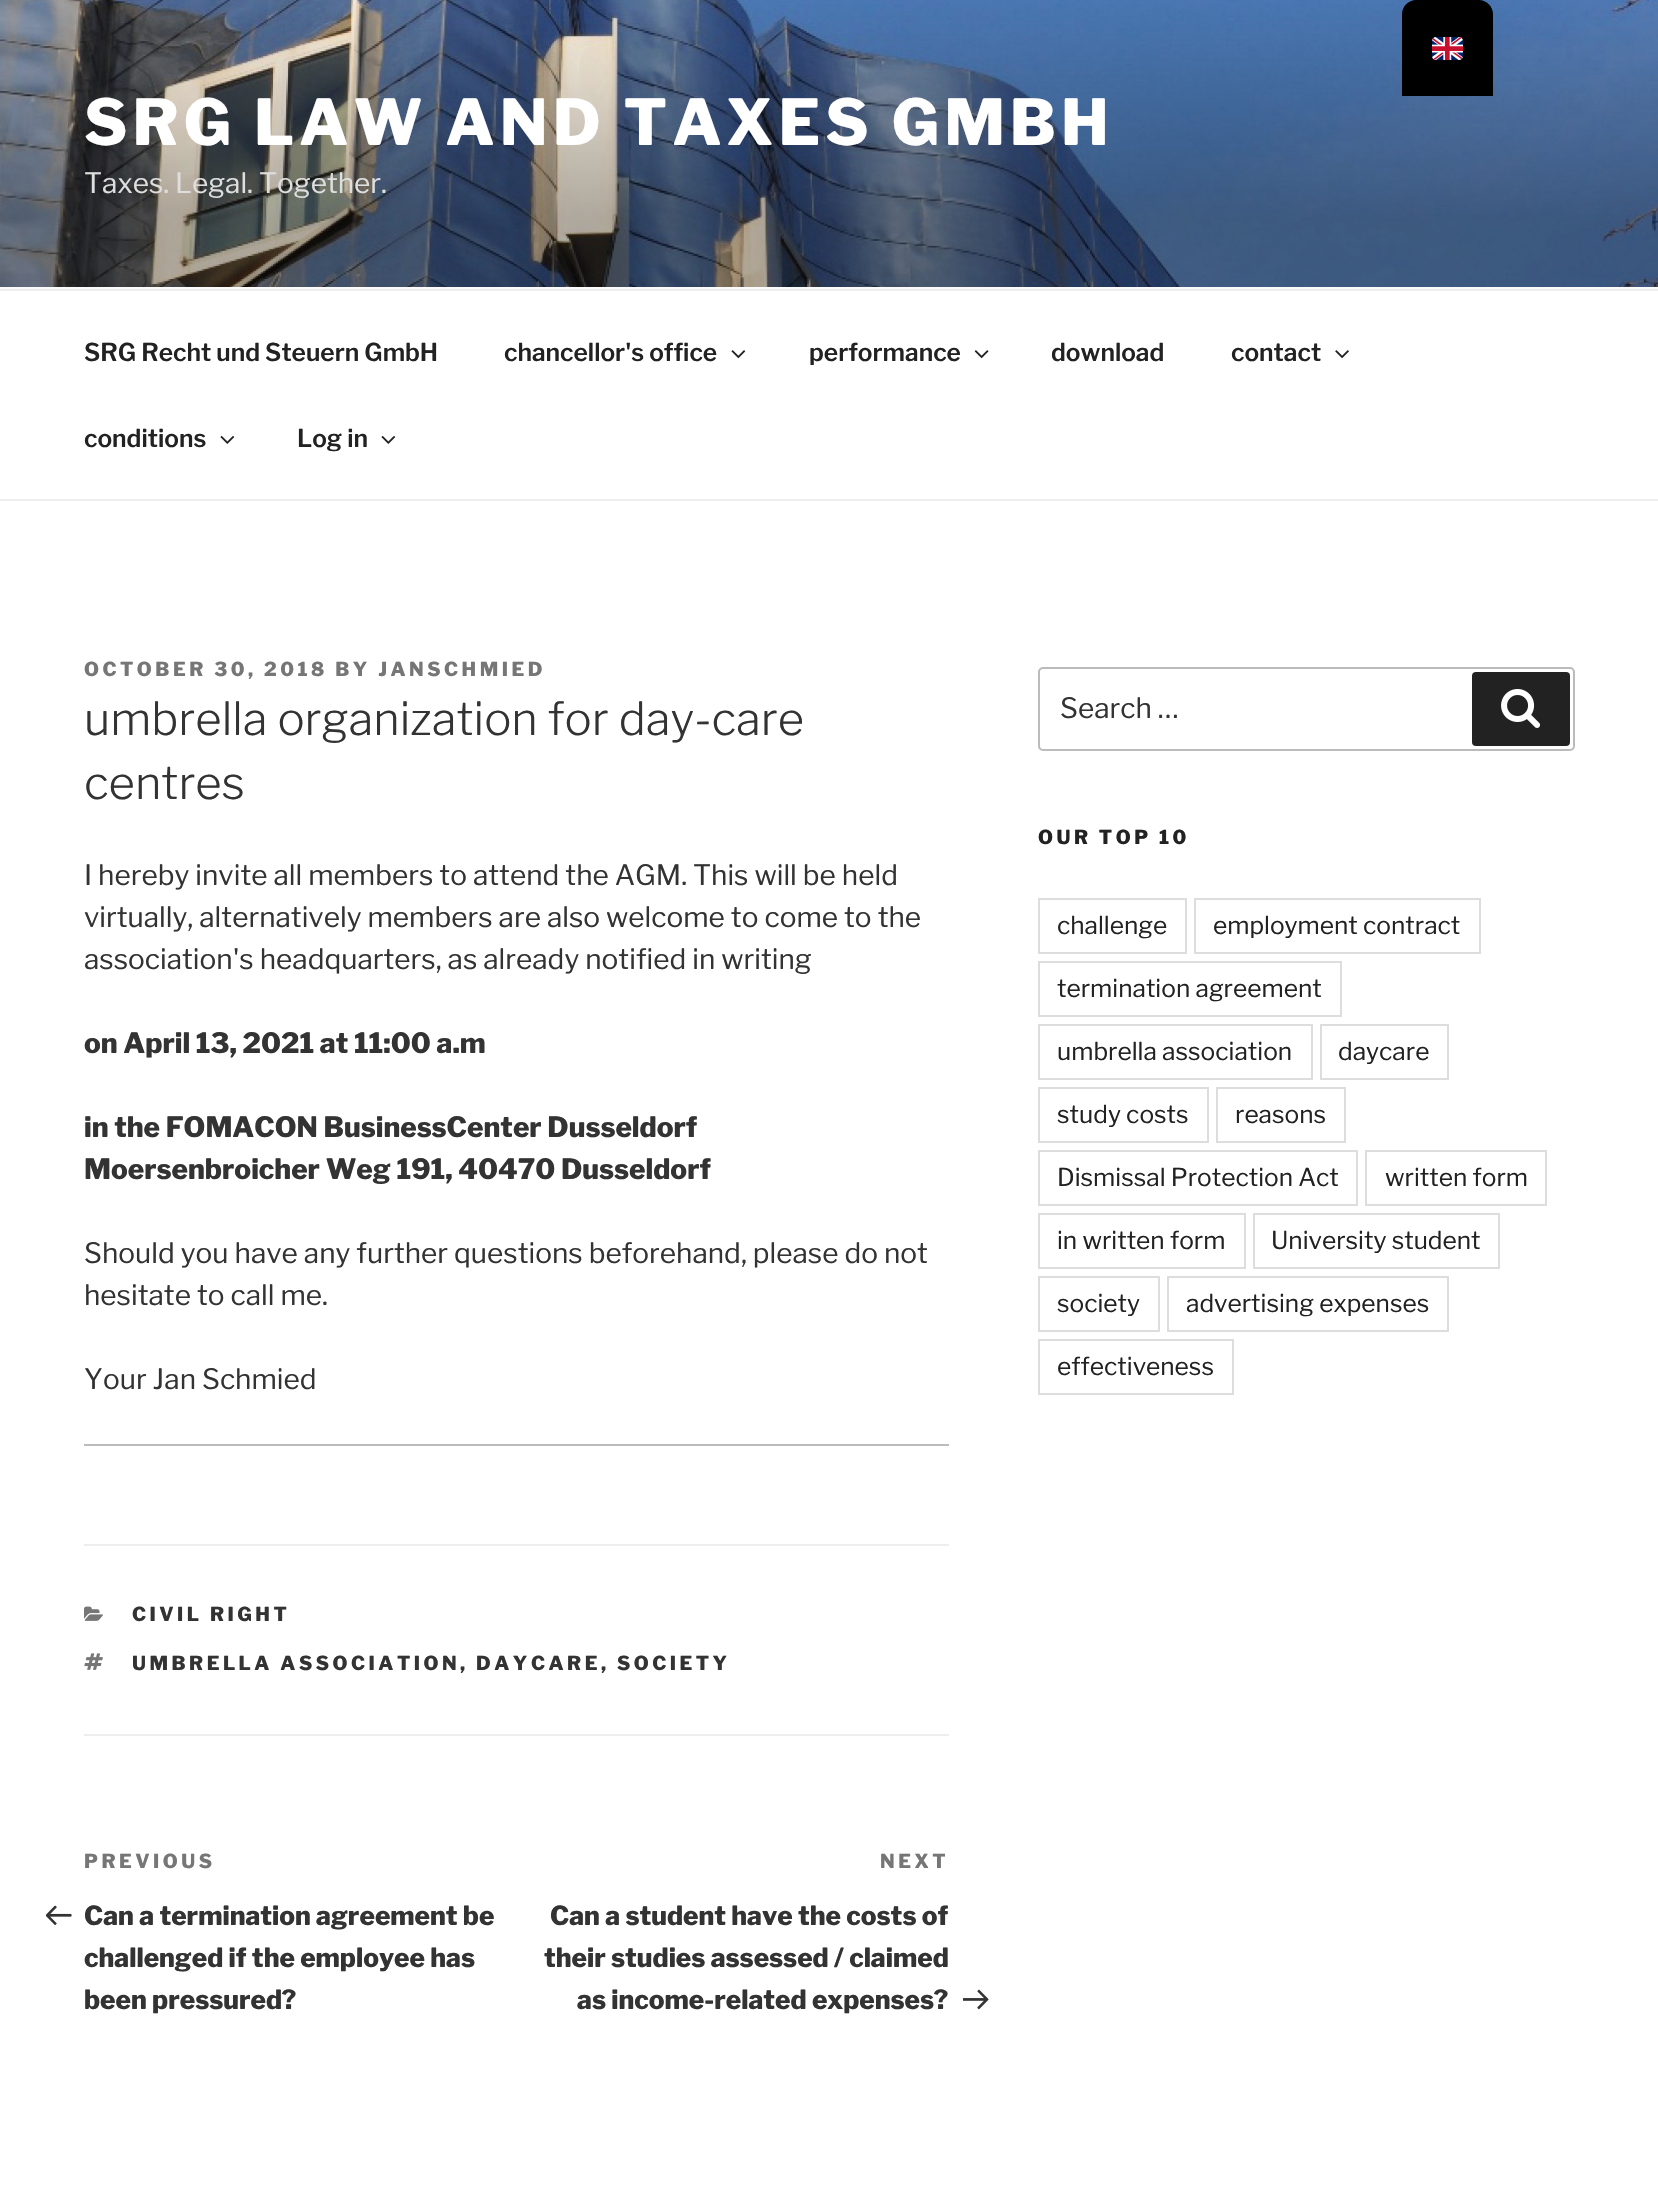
void draw(SkCanvas* c) {
SkPaint p;
p.setAntiAlias(true);
auto F=[&](const char* family, int weight, float size, bool italic = false){SkFontStyle style(weight, SkFontStyle::kNormal_Width,italic ? SkFontStyle::kItalic_Slant : SkFontStyle::kUpright_Slant);SkFont result(fontMgr->matchFamilyStyle(family, style), size);result.setSubpixel(true);return result;};
auto T=[&](const char* s, float x, float y, const SkFont& font){c->drawString(s, x, y, font, p);};
auto L=[&](const char* s, float x, float y, const SkFont& font, const SkPaint& ink, float letter, float word){std::vector<SkGlyphID> glyphs(font.countText(s, strlen(s), SkTextEncoding::kUTF8));std::vector<float> xs(glyphs.size());font.textToGlyphs(s, strlen(s), SkTextEncoding::kUTF8, glyphs);font.getXPos(glyphs, xs, x);float extra = 0;for (size_t i = 0; i < glyphs.size(); i++) {xs[i] += extra;extra += letter + word * (glyphs[i] == font.unicharToGlyph(' '));}c->drawTextBlob(SkTextBlob::MakeFromPosHGlyphs(glyphs, xs, y, font), 0, 0, ink);};
auto R=[&](float x, float y, float w, float h){c->drawRect(SkRect::MakeXYWH(x, y, w, h), p);};
auto Q=[&](float x, float y, float w, float h, float radius){c->drawRoundRect(SkRect::MakeXYWH(x, y, w, h), radius, radius, p);};
auto I=[&](const char* path, float x, float y, float w, float h){auto image = SkImages::DeferredFromEncodedData(SkData::MakeFromFileName(path));c->drawImageRect(image, SkRect::MakeXYWH(x, y, w, h), SkSamplingOptions());};
auto P=[&](const char* data, bool evenOdd = false){SkPath result = *SkParsePath::FromSVGString(data);if (evenOdd) result.setFillType(SkPathFillType::kEvenOdd);return result;};
c->clear(0xffffffff);
I("2.png",0,0,1658,287);
p.setColor(0xff000000);
c->drawPath(P("M1416 0h63c7.5 0 14 6.5 14 14v82h-91v-82c0-7.5 6.5-14 14-14z"),p);
I("1.png",1432,37,31,23);
p.setColor(0xfffafafa);
R(0,287,1658,2);
auto f1 = F("Libre Franklin",100,63);
p.setColor(0xffffffff);
L("SRG LAW AND TAXES GMBH",84,145,f1,p,5,0);
auto f2 = F("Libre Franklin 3",100,28);
p.setColor(0xffdddedd);
T("Taxes. Legal. Together.",84,193,f2);
p.setColor(0xffeeeeee);
R(0,289,1658,2);
R(0,499,1658,2);
auto f3 = F("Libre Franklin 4",100,24.5);
p.setColor(0xff222222);
T("SRG Recht und Steuern GmbH",84,361,f3);
T("chancellor's office",504,361,f3);
I("3.png",731,350,15,9);
T("performance",809,361,f3);
I("4.png",974,350,15,9);
T("download",1051,361,f3);
T("contact",1231,361,f3);
I("5.png",1335,350,14,9);
T("conditions",84,447,f3);
I("6.png",220,436,15,8);
T("Log in",297,447,f3);
I("6.png",381,436,15,8);
auto f4 = F("Libre Franklin",100,19.25);
p.setColor(0xff767676);
L("OCTOBER 30, 2018 BY JANSCHMIED",84,676,f4,p,3.5,0);
auto f5 = F("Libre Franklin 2",100,45.5);
p.setColor(0xff333333);
T("umbrella organization for day-care",84,735,f5);
T("centres",84,799,f5);
T("I hereby invite all members to attend the AGM. This will be held",84,885,f2);
T("virtually, alternatively members are also welcome to come to the",84,927,f2);
T("association's headquarters, as already notified in writing",84,969,f2);
auto f6 = F("Libre Franklin",100,28);
T("on April 13, 2021 at 11:00 a.m",84,1053,f6);
T("in the FOMACON BusinessCenter Dusseldorf",84,1137,f6);
T("Moersenbroicher Weg 191, 40470 Dusseldorf",84,1179,f6);
T("Should you have any further questions beforehand, please do not",84,1263,f2);
T("hesitate to call me.",84,1305,f2);
T("Your Jan Schmied",84,1389,f2);
p.setColor(0xffbbbbbb);
R(84,1444,865,2);
p.setColor(0xffeeeeee);
R(84,1544,865,2);
R(84,1734,865,2);
I("7.png",84,1606,19,15);
p.setColor(0xff333333);
L("CIVIL RIGHT",132,1621,f4,p,3.5,0);
I("8.png",84,1653,19,17);
L("UMBRELLA ASSOCIATION, DAYCARE, SOCIETY",132,1670,f4,p,3.5,0);
p.setColor(0xff767676);
L("PREVIOUS",84,1868,f4,p,3.5,0);
I("9.png",46,1905,26,21);
auto f7 = F("Libre Franklin",100,26.25);
p.setColor(0xff333333);
T("Can a termination agreement be",84,1925,f7);
T("challenged if the employee has",84,1967,f7);
T("been pressured?",84,2009,f7);
p.setColor(0xff767676);
L("NEXT",880,1868,f4,p,3.5,0);
p.setColor(0xff333333);
T("Can a student have the costs of",550,1925,f7);
T("their studies assessed / claimed",544,1967,f7);
T("as income-related expenses?",577,2009,f7);
I("10.png",963,1989,26,21);
p.setStroke(true);
p.setStrokeWidth(2);
p.setColor(0xffbbbbbb);
c->drawRoundRect(SkRect::MakeXYWH(1039,668,535,82),4,4,p);
p.setStroke(false);
p.setColor(0xff333333);
T("Search …",1060,718,f2);
p.setColor(0xff222222);
Q(1472,672,98,74,4);
I("11.png",1501,689,39,39);
L("OUR TOP 10",1038,844,f4,p,3.5,0);
p.setStroke(true);
p.setColor(0xffdddddd);
c->drawRect(SkRect::MakeXYWH(1039,899,147,54),p);
auto f8 = F("Libre Franklin 3",100,24.5);
p.setStroke(false);
p.setColor(0xff222222);
T("challenge",1057,934,f8);
p.setStroke(true);
p.setColor(0xffdddddd);
c->drawRect(SkRect::MakeXYWH(1195,899,285,54),p);
p.setStroke(false);
p.setColor(0xff222222);
T("employment contract",1213,934,f8);
p.setStroke(true);
p.setColor(0xffdddddd);
c->drawRect(SkRect::MakeXYWH(1039,962,302,54),p);
p.setStroke(false);
p.setColor(0xff222222);
T("termination agreement",1057,997,f8);
p.setStroke(true);
p.setColor(0xffdddddd);
c->drawRect(SkRect::MakeXYWH(1039,1025,273,54),p);
p.setStroke(false);
p.setColor(0xff222222);
T("umbrella association",1057,1060,f8);
p.setStroke(true);
p.setColor(0xffdddddd);
c->drawRect(SkRect::MakeXYWH(1321,1025,127,54),p);
p.setStroke(false);
p.setColor(0xff222222);
T("daycare",1338,1060,f8);
p.setStroke(true);
p.setColor(0xffdddddd);
c->drawRect(SkRect::MakeXYWH(1039,1088,169,54),p);
p.setStroke(false);
p.setColor(0xff222222);
T("study costs",1057,1123,f8);
p.setStroke(true);
p.setColor(0xffdddddd);
c->drawRect(SkRect::MakeXYWH(1217,1088,128,54),p);
p.setStroke(false);
p.setColor(0xff222222);
T("reasons",1235,1123,f8);
p.setStroke(true);
p.setColor(0xffdddddd);
c->drawRect(SkRect::MakeXYWH(1039,1151,318,54),p);
p.setStroke(false);
p.setColor(0xff222222);
T("Dismissal Protection Act",1057,1186,f8);
p.setStroke(true);
p.setColor(0xffdddddd);
c->drawRect(SkRect::MakeXYWH(1366,1151,180,54),p);
p.setStroke(false);
p.setColor(0xff222222);
T("written form",1385,1186,f8);
p.setStroke(true);
p.setColor(0xffdddddd);
c->drawRect(SkRect::MakeXYWH(1039,1214,206,54),p);
p.setStroke(false);
p.setColor(0xff222222);
T("in written form",1057,1249,f8);
p.setStroke(true);
p.setColor(0xffdddddd);
c->drawRect(SkRect::MakeXYWH(1254,1214,245,54),p);
p.setStroke(false);
p.setColor(0xff222222);
T("University student",1271,1249,f8);
p.setStroke(true);
p.setColor(0xffdddddd);
c->drawRect(SkRect::MakeXYWH(1039,1277,120,54),p);
p.setStroke(false);
p.setColor(0xff222222);
T("society",1057,1312,f8);
p.setStroke(true);
p.setColor(0xffdddddd);
c->drawRect(SkRect::MakeXYWH(1168,1277,280,54),p);
p.setStroke(false);
p.setColor(0xff222222);
T("advertising expenses",1186,1312,f8);
p.setStroke(true);
p.setColor(0xffdddddd);
c->drawRect(SkRect::MakeXYWH(1039,1340,194,54),p);
p.setStroke(false);
p.setColor(0xff222222);
T("effectiveness",1057,1375,f8);
}
